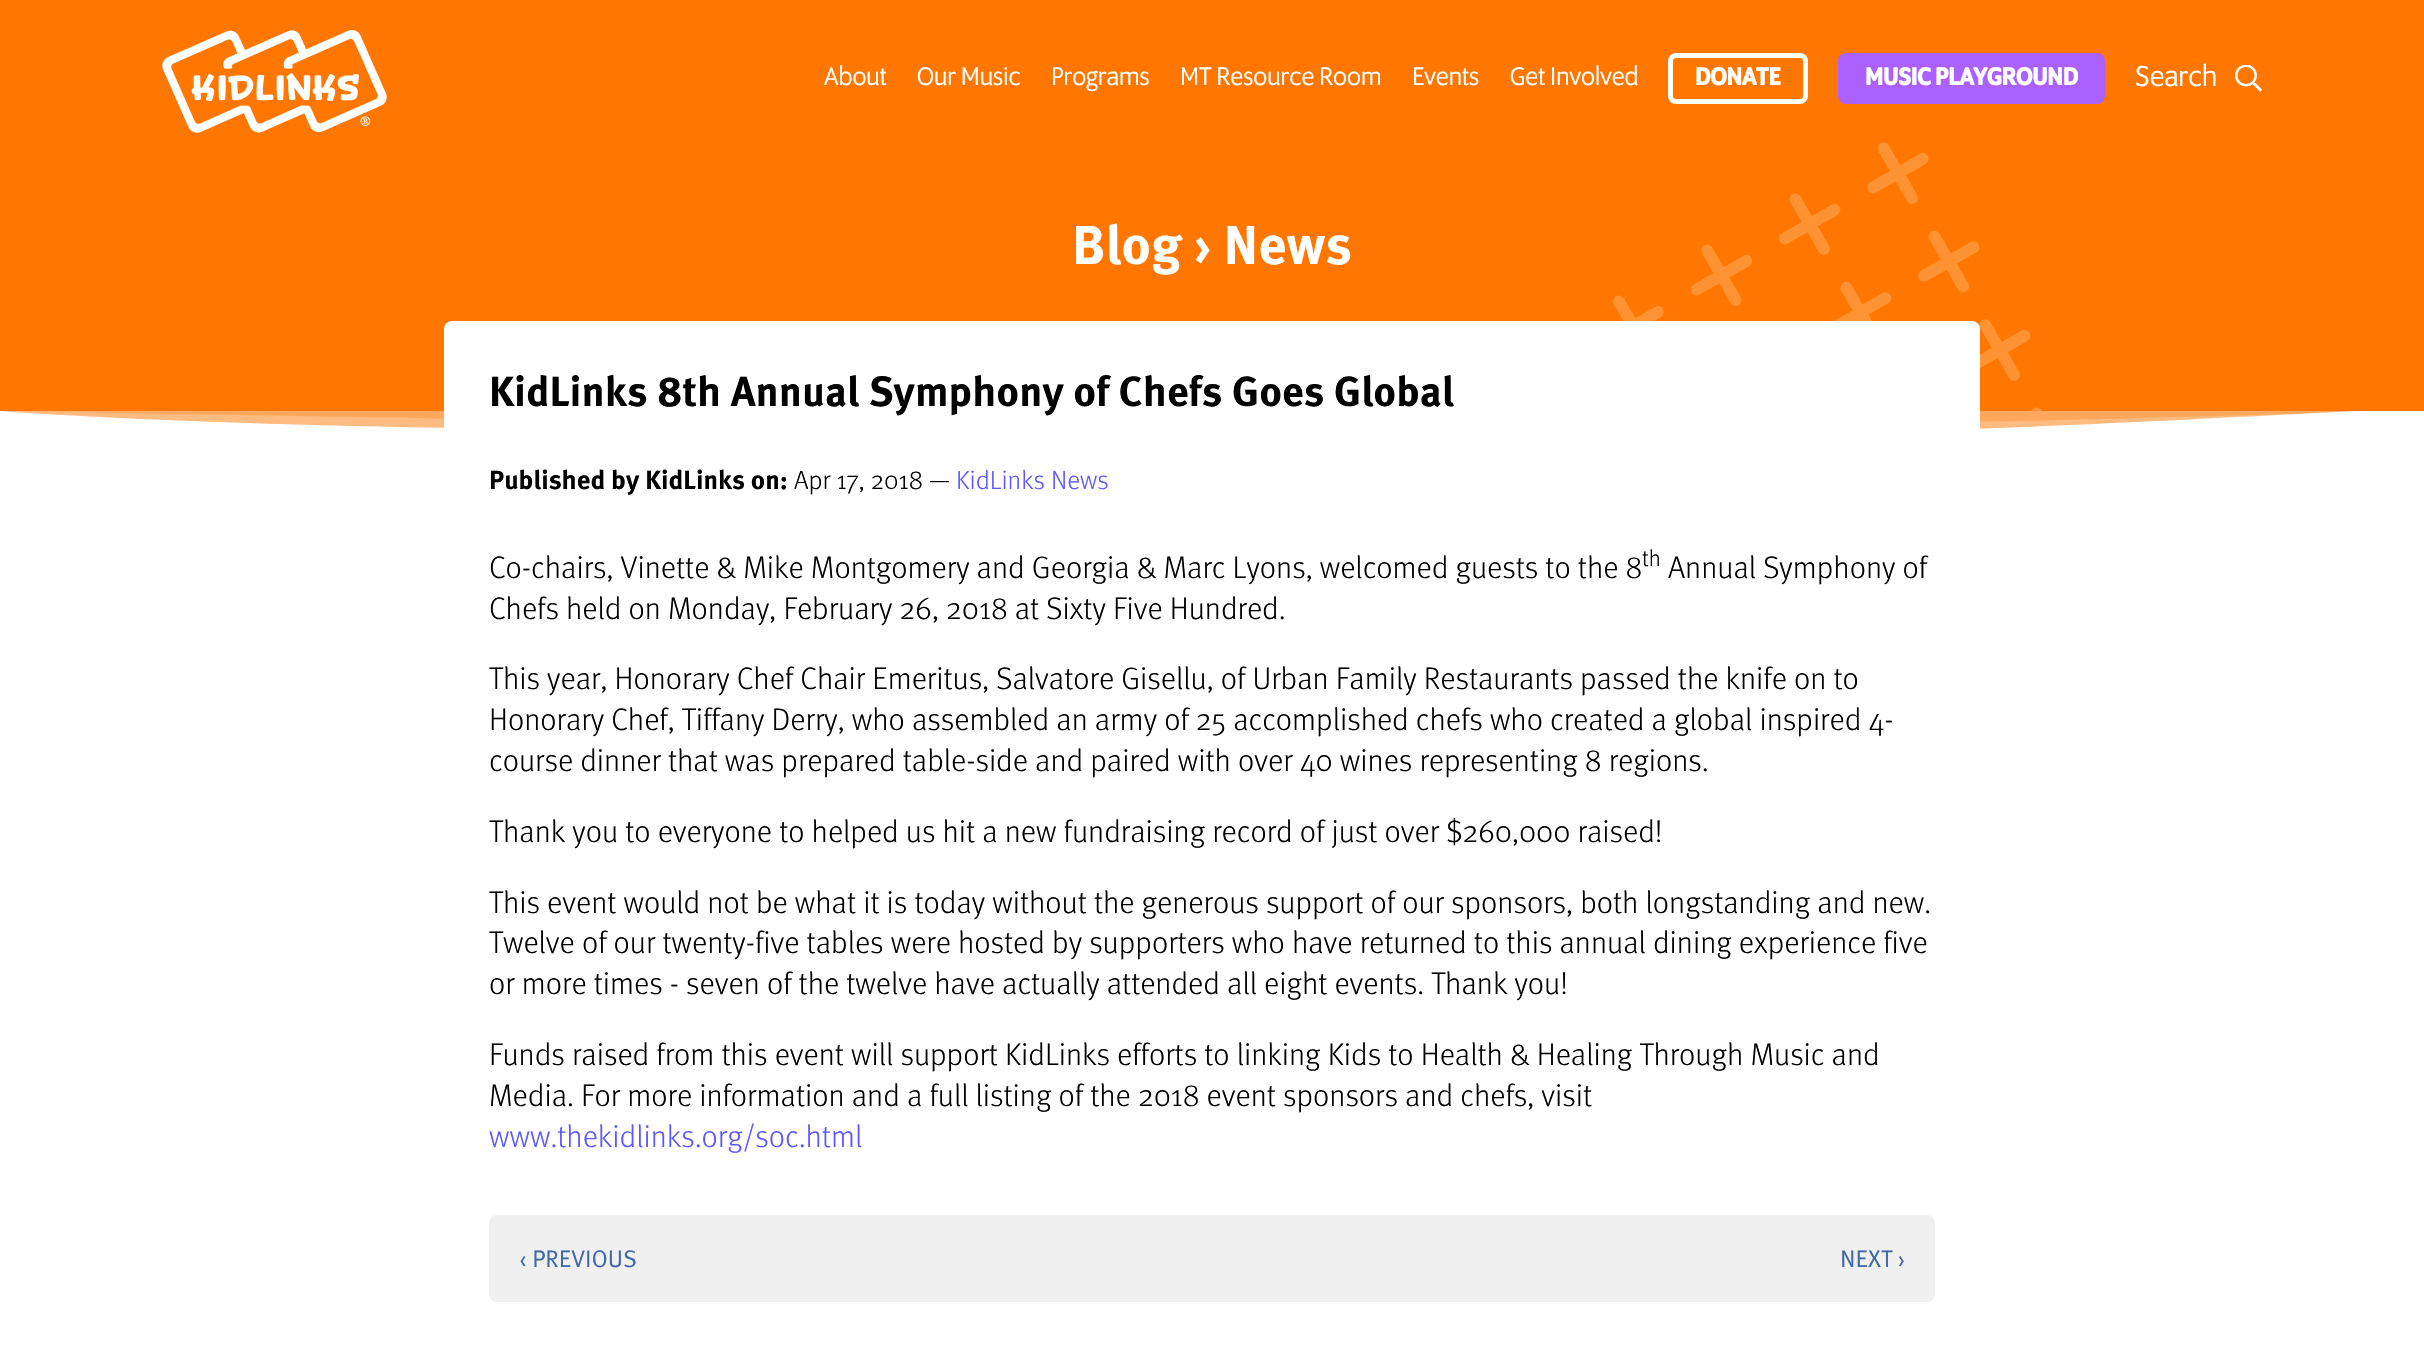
void draw(SkCanvas* c) {
SkPaint p;
p.setAntiAlias(true);
auto F=[&](const char* family, int weight, float size, bool italic = false){SkFontStyle style(weight, SkFontStyle::kNormal_Width,italic ? SkFontStyle::kItalic_Slant : SkFontStyle::kUpright_Slant);SkFont result(fontMgr->matchFamilyStyle(family, style), size);result.setSubpixel(true);return result;};
auto T=[&](const char* s, float x, float y, const SkFont& font){c->drawString(s, x, y, font, p);};
auto R=[&](float x, float y, float w, float h){c->drawRect(SkRect::MakeXYWH(x, y, w, h), p);};
auto Q=[&](float x, float y, float w, float h, float radius){c->drawRoundRect(SkRect::MakeXYWH(x, y, w, h), radius, radius, p);};
auto I=[&](const char* path, float x, float y, float w, float h){auto image = SkImages::DeferredFromEncodedData(SkData::MakeFromFileName(path));c->drawImageRect(image, SkRect::MakeXYWH(x, y, w, h), SkSamplingOptions());};
auto P=[&](const char* data, bool evenOdd = false){SkPath result = *SkParsePath::FromSVGString(data);if (evenOdd) result.setFillType(SkPathFillType::kEvenOdd);return result;};
c->clear(0xffffffff);
p.setColor(0xffff7700);
R(0,0,2424,411);
I("1.png",162,30,225,103);
auto f1 = F("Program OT",400,27.5);
p.setColor(0xffffffff);
T("About",824,85,f1);
T("Our Music",917,85,f1);
T("Programs",1051,85,f1);
T("MT Resource Room",1180,85,f1);
T("Events",1412,85,f1);
T("Get Involved",1510,85,f1);
p.setStroke(true);
p.setStrokeWidth(5);
c->drawRoundRect(SkRect::MakeXYWH(1670.5,55.5,135,46),5.5,5.5,p);
auto f2 = F("Program OT",700,26.4);
p.setStroke(false);
T("DONATE",1695,85,f2);
p.setColor(0xffab61ff);
c->drawRoundRect(SkRect::MakeXYWH(1840.5,55.5,262,46),5.5,5.5,p);
p.setStroke(true);
c->drawRoundRect(SkRect::MakeXYWH(1840.5,55.5,262,46),5.5,5.5,p);
p.setStroke(false);
p.setColor(0xffffffff);
T("MUSIC PLAYGROUND",1865,85,f2);
auto f3 = F("Program OT",400,31.2);
T("Search",2135,86,f3);
I("2.png",2235,65,27,27);
I("3.png",1613,142,429,269);
auto f4 = F("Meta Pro",700,54.75);
T("Blog › News",1072,264,f4);
p.setColor(0xffffbb80);
c->drawPath(P("M0 411c81 6 330 20 813 20c243 0 383 14 778 9c321-5 650-23 762-29z"),p);
p.setColor(0x45ff7700);
c->drawPath(P("M23 411c192 4 861 16 1375 16c513 0 872-12 969-16z"),p);
p.setColor(0xffffffff);
Q(444,321,1536,1026,8);
auto f5 = F("Meta Pro",700,42);
p.setColor(0xff000000);
T("KidLinks 8th Annual Symphony of Chefs Goes Global",489,406,f5);
auto f6 = F("Meta Pro",700,26.4);
T("Published by KidLinks on:",489,489,f6);
auto f7 = F("Meta Pro",300,26.4);
T("Apr 17, 2018 —",794,489,f7);
p.setColor(0xff5c57ff);
T("KidLinks News",956,489,f7);
auto f8 = F("Meta Pro",300,31.2);
p.setColor(0xff000000);
T("Co-chairs, Vinette & Mike Montgomery and Georgia & Marc Lyons, welcomed guests to the 8",489,578,f8);
auto f9 = F("Meta Pro",300,23);
T("th",1642,566,f9);
T("Annual Symphony of",1668,578,f8);
T("Chefs held on Monday, February 26, 2018 at Sixty Five Hundred.",489,619,f8);
T("This year, Honorary Chef Chair Emeritus, Salvatore Gisellu, of Urban Family Restaurants passed the knife on to",489,689,f8);
T("Honorary Chef, Tiffany Derry, who assembled an army of 25 accomplished chefs who created a global inspired 4-",489,730,f8);
T("course dinner that was prepared table-side and paired with over 40 wines representing 8 regions.",489,771,f8);
T("Thank you to everyone to helped us hit a new fundraising record of just over $260,000 raised!",489,842,f8);
T("This event would not be what it is today without the generous support of our sponsors, both longstanding and new.",489,913,f8);
T("Twelve of our twenty-five tables were hosted by supporters who have returned to this annual dining experience five",489,953,f8);
T("or more times - seven of the twelve have actually attended all eight events. Thank you!",489,994,f8);
T("Funds raised from this event will support KidLinks efforts to linking Kids to Health & Healing Through Music and",489,1065,f8);
T("Media. For more information and a full listing of the 2018 event sponsors and chefs, visit",489,1106,f8);
p.setColor(0xff5c57ff);
T("www.thekidlinks.org/soc.html",489,1147,f8);
p.setColor(0xfff0f0f0);
Q(489,1215,1446,87,8);
auto f10 = F("Meta Pro",400,24);
p.setColor(0xff3f68a5);
T("‹ PREVIOUS",519,1267,f10);
T("NEXT ›",1840,1267,f10);
}
